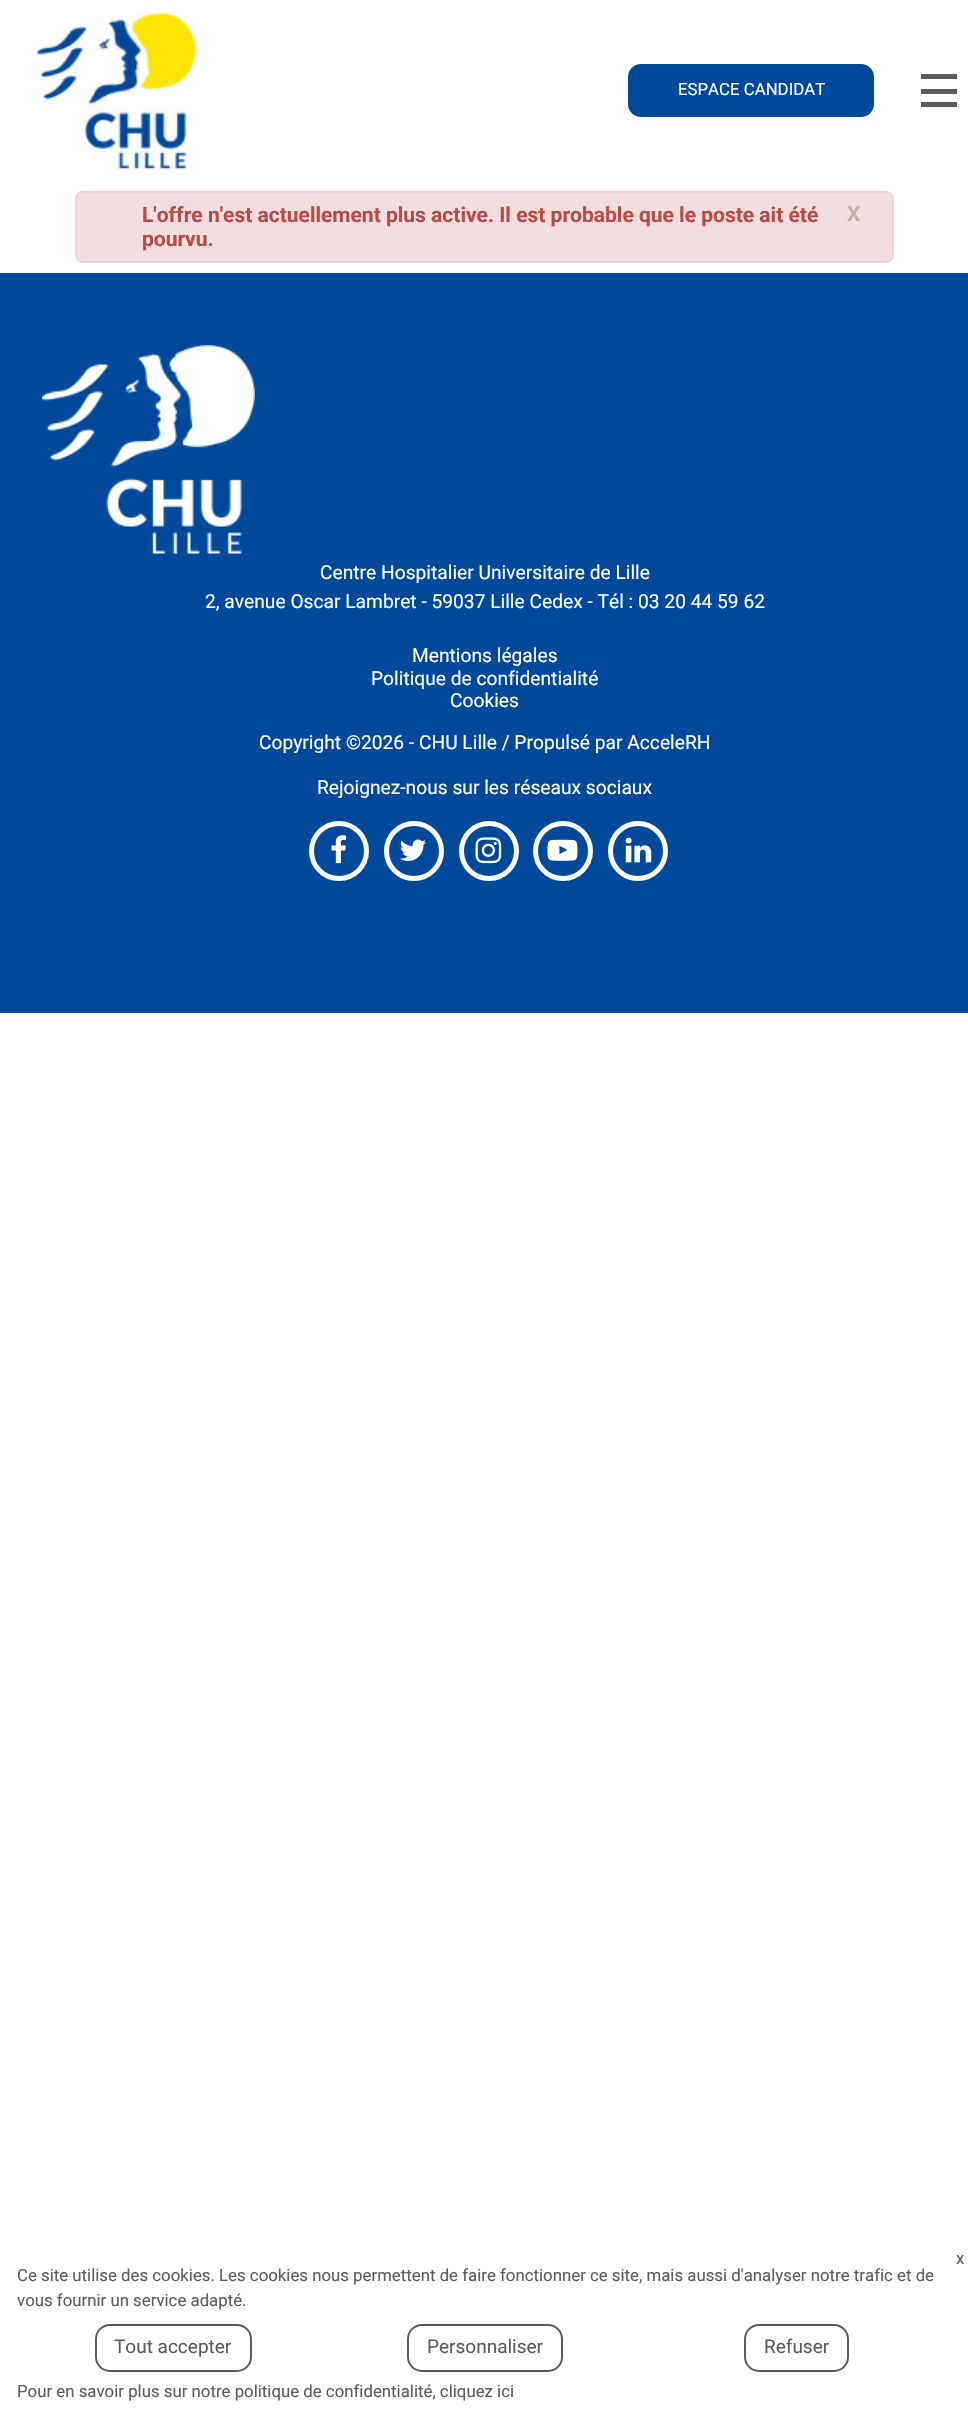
void draw(SkCanvas* c) {
SkPaint p;
p.setAntiAlias(true);
auto F=[&](const char* family, int weight, float size, bool italic = false){SkFontStyle style(weight, SkFontStyle::kNormal_Width,italic ? SkFontStyle::kItalic_Slant : SkFontStyle::kUpright_Slant);SkFont result(fontMgr->matchFamilyStyle(family, style), size);result.setSubpixel(true);return result;};
auto T=[&](const char* s, float x, float y, const SkFont& font){c->drawString(s, x, y, font, p);};
auto R=[&](float x, float y, float w, float h){c->drawRect(SkRect::MakeXYWH(x, y, w, h), p);};
auto I=[&](const char* path, float x, float y, float w, float h){auto image = SkImages::DeferredFromEncodedData(SkData::MakeFromFileName(path));c->drawImageRect(image, SkRect::MakeXYWH(x, y, w, h), SkSamplingOptions());};
c->clear(0xffffffff);
I("1.png",32,12,168,158);
p.setColor(0xff004899);
c->drawRoundRect(SkRect::MakeXYWH(627,63,248,55),14,14,p);
p.setStroke(true);
p.setStrokeWidth(2);
p.setColor(0xffffffff);
c->drawRoundRect(SkRect::MakeXYWH(627,63,248,55),14,14,p);
auto f1 = F("Roboto",400,16.8);
p.setStroke(false);
T("ESPACE CANDIDAT",678,95,f1);
p.setColor(0xff5c5c5c);
R(921,74,36,5);
R(921,89,36,5);
R(921,102,36,5);
p.setColor(0xfff2dede);
c->drawRoundRect(SkRect::MakeXYWH(76,192,817,70),7,7,p);
p.setStroke(true);
p.setColor(0xffeed3d7);
c->drawRoundRect(SkRect::MakeXYWH(76,192,817,70),7,7,p);
auto f2 = F("Roboto",700,21);
p.setStroke(false);
p.setColor(0xffb94a48);
T("L'offre n'est actuellement plus active. Il est probable que le poste ait été",142,222,f2);
p.setStroke(true);
p.setColor(0xffece0d9);
c->drawRect(SkRect::MakeXYWH(846,204,14,22),p);
p.setStroke(false);
p.setColor(0xffc2b2b2);
T("X",847,221,f2);
p.setColor(0xffb94a48);
T("pourvu.",142,246,f2);
p.setColor(0xff004899);
R(0,273,968,740);
I("2.png",42,345,213,209);
auto f3 = F("Roboto",400,19.2);
p.setColor(0xffffffff);
T("Centre Hospitalier Universitaire de Lille",320,579,f3);
T("2, avenue Oscar Lambret - 59037 Lille Cedex - Tél : 03 20 44 59 62",205,608,f3);
T("Mentions légales",412,662,f3);
T("Politique de confidentialité",371,685,f3);
T("Cookies",450,707,f3);
T("Copyright ©2026 - CHU Lille / Propulsé par AcceleRH",259,749,f3);
T("Rejoignez-nous sur les réseaux sociaux",317,794,f3);
p.setStroke(true);
p.setStrokeWidth(5);
c->drawCircle(339,851,27.5,p);
I("3.png",331,835,16,29);
c->drawCircle(414,851,27.5,p);
I("4.png",400,839,26,22);
c->drawCircle(489,851,27.5,p);
I("5.png",475,837,27,27);
c->drawCircle(563,851,27.5,p);
I("6.png",547,839,31,22);
c->drawCircle(638,851,27.5,p);
I("7.png",625,837,27,26);
p.setStroke(false);
p.setColor(0xff5c5c5c);
T("x",956,2264,f1);
T("Ce site utilise des cookies. Les cookies nous permettent de faire fonctionner ce site, mais aussi d'analyser notre trafic et de",17,2281,f1);
T("vous fournir un service adapté.",17,2306,f1);
p.setStroke(true);
p.setStrokeWidth(2);
c->drawRoundRect(SkRect::MakeXYWH(96,2325,155,46),14,14,p);
auto f4 = F("Roboto",400,19);
p.setStroke(false);
T("Tout accepter",114,2353,f4);
p.setStroke(true);
c->drawRoundRect(SkRect::MakeXYWH(408,2325,154,46),14,14,p);
p.setStroke(false);
T("Personnaliser",427,2353,f4);
p.setStroke(true);
c->drawRoundRect(SkRect::MakeXYWH(745,2325,103,46),14,14,p);
p.setStroke(false);
T("Refuser",764,2353,f4);
T("Pour en savoir plus sur notre politique de confidentialité, cliquez ici",17,2397,f1);
}
